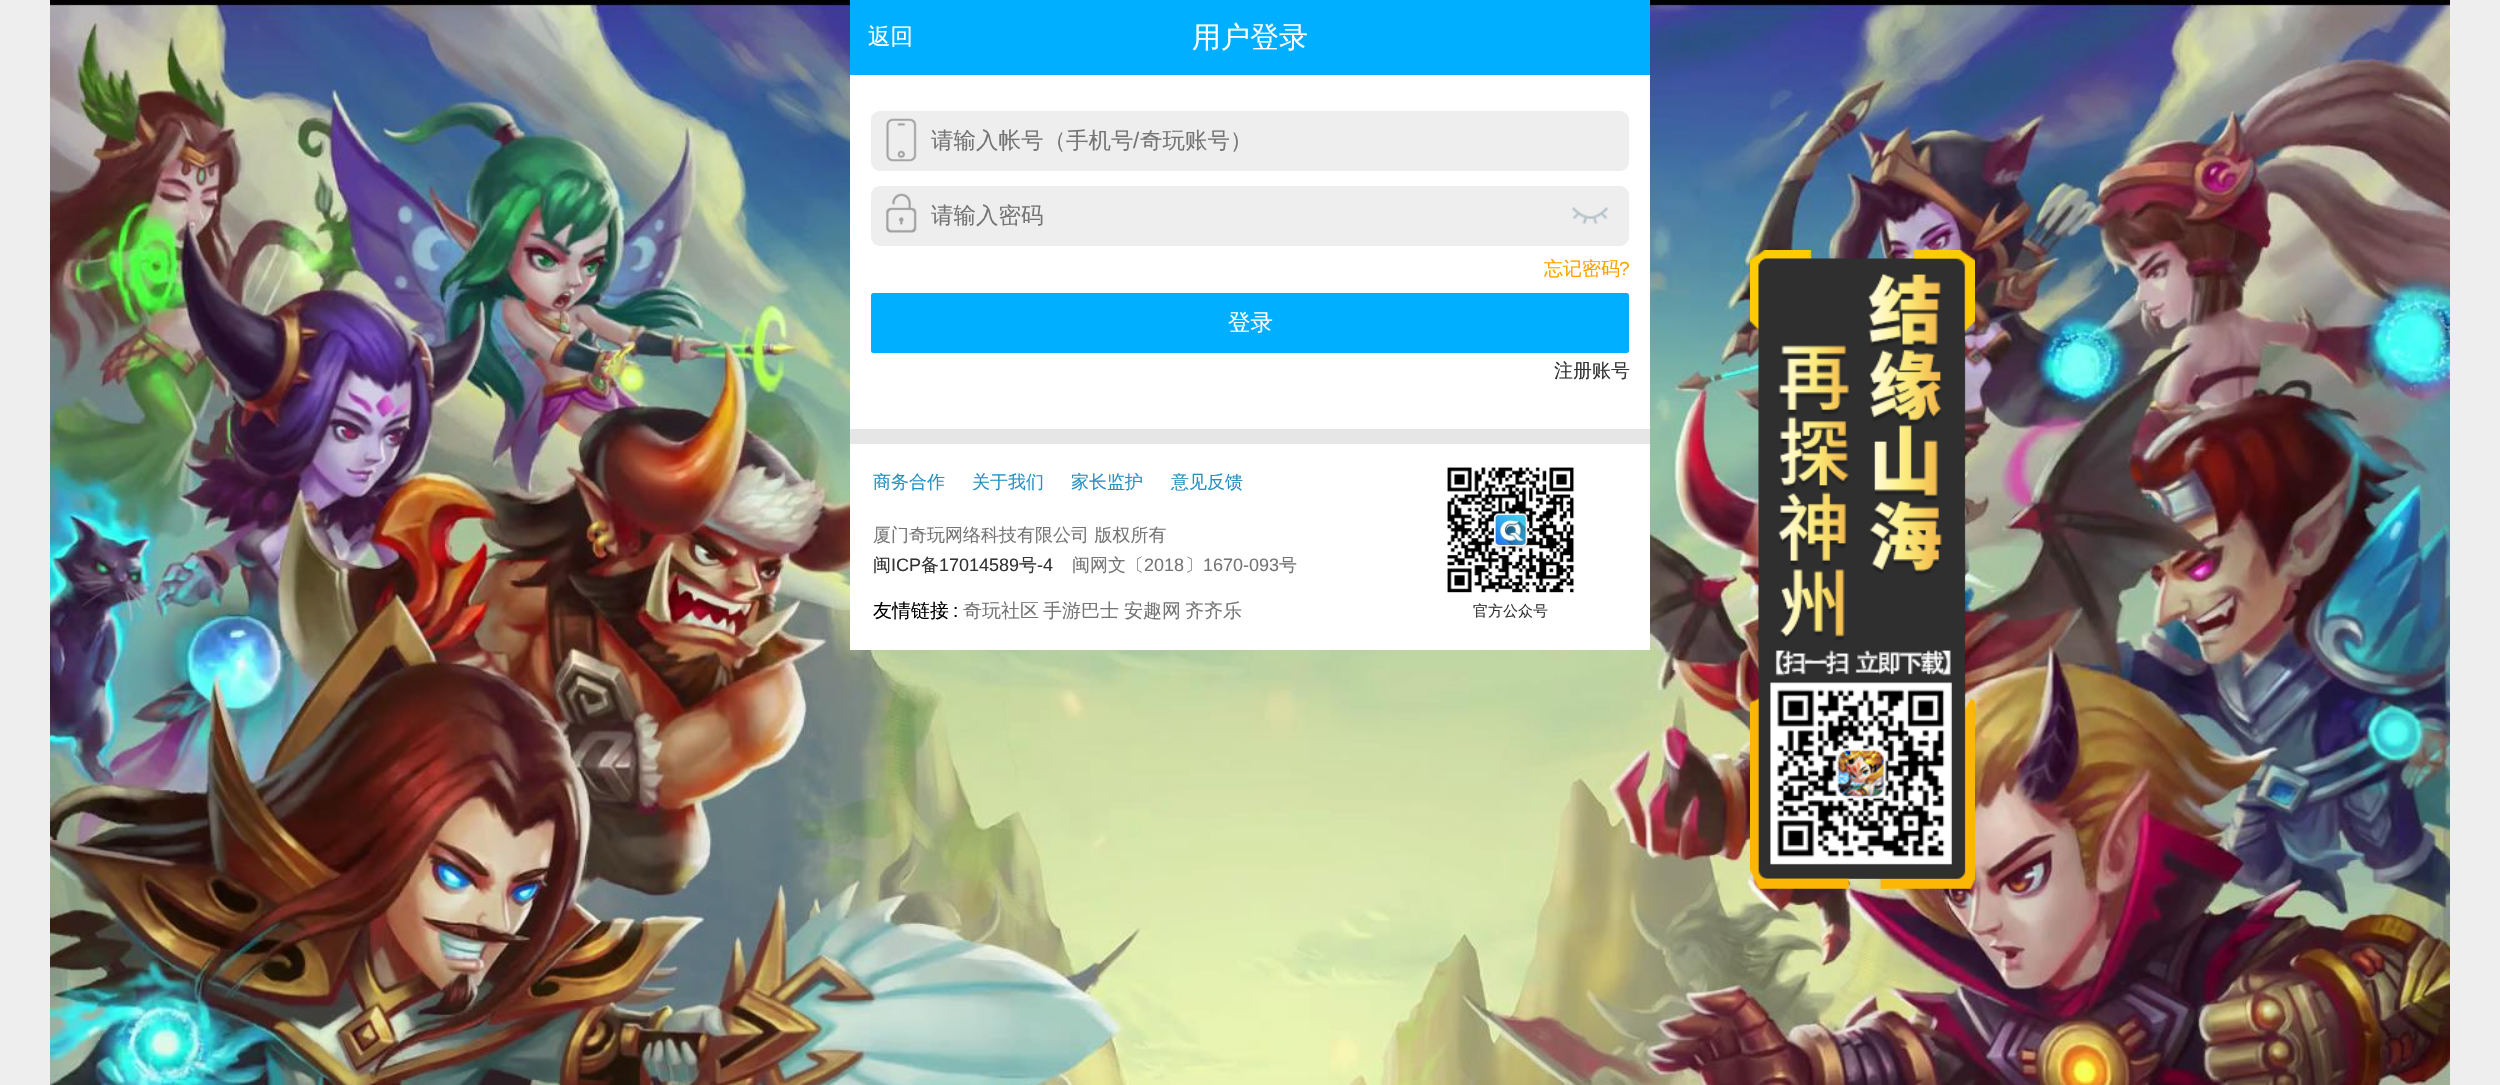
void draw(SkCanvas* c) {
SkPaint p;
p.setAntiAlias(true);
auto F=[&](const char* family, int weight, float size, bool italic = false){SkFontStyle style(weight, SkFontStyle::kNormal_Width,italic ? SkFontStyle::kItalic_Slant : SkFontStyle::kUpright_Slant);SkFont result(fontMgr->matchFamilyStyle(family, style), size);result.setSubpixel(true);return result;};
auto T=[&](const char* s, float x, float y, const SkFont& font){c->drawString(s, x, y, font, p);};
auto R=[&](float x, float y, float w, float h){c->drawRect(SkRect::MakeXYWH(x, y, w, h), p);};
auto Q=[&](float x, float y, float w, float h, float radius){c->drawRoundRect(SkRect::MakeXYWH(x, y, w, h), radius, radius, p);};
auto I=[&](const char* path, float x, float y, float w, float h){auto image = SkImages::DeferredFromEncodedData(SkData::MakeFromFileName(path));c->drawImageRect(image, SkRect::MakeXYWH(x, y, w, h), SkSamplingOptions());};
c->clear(0xffeeeeee);
I("1.png",50,0,2400,1085);
I("2.png",1750,250,225,639);
I("3.png",1750,250,225,639);
p.setColor(0xffffffff);
R(850,75,800,575);
p.setColor(0xff00afff);
R(850,0,800,75);
auto f1 = F("WenQuanYi Zen Hei",500,22.5);
p.setColor(0xffffffff);
T("返回",868,44,f1);
auto f2 = F("WenQuanYi Zen Hei",500,29);
T("用户登录",1192,47,f2);
p.setColor(0xffeeeeee);
Q(871,111,758,60,9);
I("4.png",886,118,31,44);
p.setColor(0xff757575);
T("请输入帐号（手机号",931,148,f1);
auto f3 = F("Liberation Sans",400,22.5);
T("/",1133,148,f3);
T("奇玩账号）",1140,148,f1);
p.setColor(0xffeeeeee);
Q(871,186,758,60,9);
I("5.png",886,193,31,40);
p.setColor(0xff757575);
T("请输入密码",931,223,f1);
I("6.png",1572,207,36,17);
auto f4 = F("WenQuanYi Zen Hei",500,19);
p.setColor(0xffffa200);
T("忘记密码",1544,275,f4);
auto f5 = F("Liberation Sans",400,19);
T("?",1619,275,f5);
p.setColor(0xff00afff);
Q(871,293,758,60,2.5);
p.setColor(0xffffffff);
T("登录",1228,330,f1);
p.setColor(0xff333333);
T("注册账号",1554,377,f4);
p.setColor(0xffe6e6e6);
R(850,429,800,15);
auto f6 = F("WenQuanYi Zen Hei",500,18);
p.setColor(0xff2491c3);
T("商务合作",873,488,f6);
T("关于我们",972,488,f6);
T("家长监护",1071,488,f6);
T("意见反馈",1171,488,f6);
p.setColor(0xff757575);
T("厦门奇玩网络科技有限公司 版权所有",873,541,f6);
p.setColor(0xff333333);
T("闽",873,571,f6);
auto f7 = F("Liberation Sans",400,18);
T("ICP",891,571,f7);
T("备",921,571,f6);
T("17014589",939,571,f7);
T("号",1019,571,f6);
T("-4",1037,571,f7);
p.setColor(0xff757575);
T("闽网文〔",1072,571,f6);
T("2018",1144,571,f7);
T("〕",1185,571,f6);
T("1670-093",1203,571,f7);
T("号",1279,571,f6);
p.setColor(0xff000000);
T("友情链接",873,617,f4);
T(":",953,617,f5);
p.setColor(0xff757575);
T("奇玩社区",963,617,f4);
T("手游巴士",1043,617,f4);
T("安趣网",1124,617,f4);
T("齐齐乐",1185,617,f4);
I("7.png",1447,467,128,126);
auto f8 = F("WenQuanYi Zen Hei",500,15);
p.setColor(0xff333333);
T("官方公众号",1473,616,f8);
}
